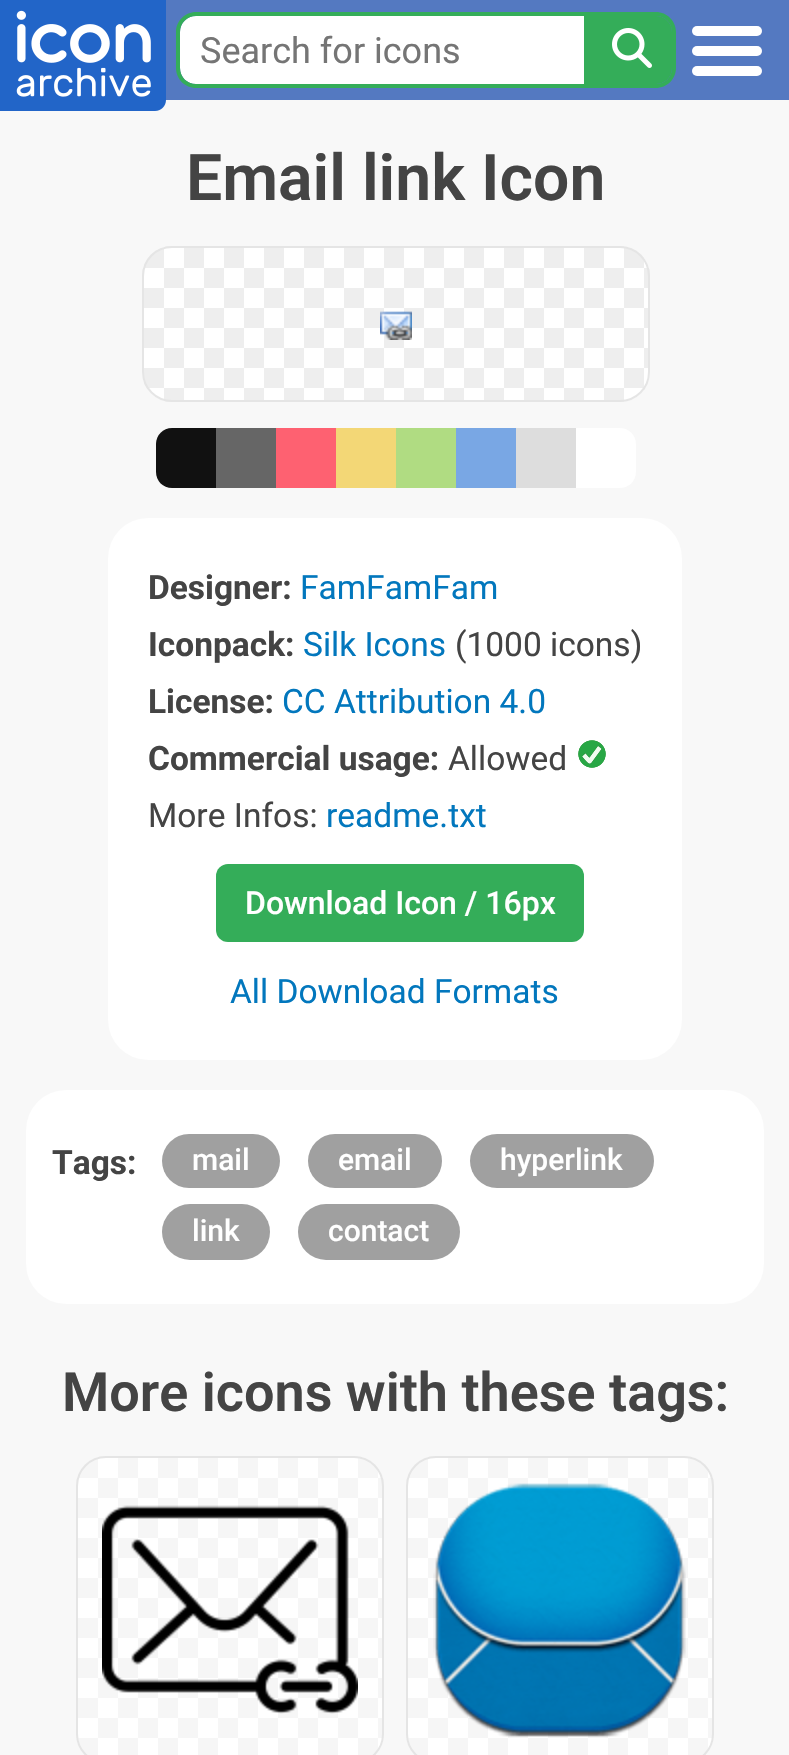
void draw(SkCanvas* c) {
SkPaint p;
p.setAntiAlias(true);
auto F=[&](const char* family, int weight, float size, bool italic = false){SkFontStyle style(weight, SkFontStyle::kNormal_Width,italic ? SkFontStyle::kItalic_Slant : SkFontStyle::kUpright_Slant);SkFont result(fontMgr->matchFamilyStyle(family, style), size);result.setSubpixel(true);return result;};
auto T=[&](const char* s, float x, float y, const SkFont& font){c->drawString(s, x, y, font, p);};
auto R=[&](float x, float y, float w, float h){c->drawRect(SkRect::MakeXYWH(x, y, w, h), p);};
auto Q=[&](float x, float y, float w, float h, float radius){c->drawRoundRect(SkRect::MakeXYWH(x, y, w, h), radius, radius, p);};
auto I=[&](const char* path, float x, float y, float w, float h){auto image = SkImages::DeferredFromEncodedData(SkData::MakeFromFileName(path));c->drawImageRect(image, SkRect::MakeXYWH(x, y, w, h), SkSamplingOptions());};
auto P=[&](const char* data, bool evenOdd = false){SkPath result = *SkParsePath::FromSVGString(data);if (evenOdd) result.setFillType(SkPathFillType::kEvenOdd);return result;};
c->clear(0xfff8f8f8);
p.setColor(0xff5479c1);
R(166,0,623,100);
I("1.png",0,0,166,111);
p.setColor(0xffffffff);
c->drawPath(P("M196 16h388v68h-388c-9 0-16-7-16-16v-36c0-9 7-16 16-16z"),p);
p.setColor(0xff34ad59);
c->drawPath(P("M196 12h388v76h-388c-11 0-20-9-20-20v-36c0-11 9-20 20-20zm0 4h388v68h-388c-9 0-16-7-16-16v-36c0-9 7-16 16-16z",true),p);
auto f1 = F("Roboto",400,36);
p.setColor(0xff757575);
T("Search for icons",200,63,f1);
p.setColor(0xff34ad59);
c->drawPath(P("M584 16h72c9 0 16 7 16 16v36c0 9-7 16-16 16h-72z"),p);
c->drawPath(P("M584 12h72c11 0 20 9 20 20v36c0 11-9 20-20 20h-72zm0 4h72c9 0 16 7 16 16v36c0 9-7 16-16 16h-72z",true),p);
I("2.png",612,28,40,40);
p.setColor(0xffffffff);
Q(692,26,70,10,5);
Q(692,46,70,10,5);
Q(692,66,70,10,5);
auto f2 = F("Roboto",600,64.25);
p.setColor(0xff444444);
T("Email link Icon",186,200,f2);
I("3.png",142,246,508,156);
p.setStroke(true);
p.setStrokeWidth(2);
p.setColor(0xffe5e5e5);
c->drawRoundRect(SkRect::MakeXYWH(143,247,506,154),29,29,p);
I("4.png",380,311,32,29);
p.setStroke(false);
p.setColor(0xff111111);
c->drawPath(P("M172 428h44v60h-44c-9 0-16-7-16-16v-28c0-9 7-16 16-16z"),p);
p.setColor(0xff666666);
R(216,428,60,60);
p.setColor(0xfffe6171);
R(276,428,60,60);
p.setColor(0xfff3d776);
R(336,428,60,60);
p.setColor(0xffb0dc82);
R(396,428,60,60);
p.setColor(0xff79a7e4);
R(456,428,60,60);
p.setColor(0xffdddddd);
R(516,428,60,60);
p.setColor(0xffffffff);
c->drawPath(P("M576 428h44c9 0 16 7 16 16v28c0 9-7 16-16 16h-44z"),p);
Q(108,518,574,542,40);
auto f3 = F("Roboto",700,33.5);
p.setColor(0xff444444);
T("Designer:",148,599,f3);
auto f4 = F("Roboto",400,33.5);
p.setColor(0xff0277bd);
T("FamFamFam",300,599,f4);
p.setColor(0xff444444);
T("Iconpack:",148,656,f3);
p.setColor(0xff0277bd);
T("Silk Icons",303,656,f4);
p.setColor(0xff444444);
T("(1000 icons)",455,656,f4);
T("License:",148,713,f3);
p.setColor(0xff0277bd);
T("CC Attribution 4.0",282,713,f4);
p.setColor(0xff444444);
T("Commercial usage:",148,770,f3);
T("Allowed",448,770,f4);
I("5.png",578,740,28,28);
T("More Infos:",148,827,f4);
p.setColor(0xff0277bd);
T("readme.txt",326,827,f4);
p.setColor(0xff34ad59);
Q(216,864,368,78,12);
auto f5 = F("Roboto",500,32);
p.setColor(0xffffffff);
T("Download Icon / 16px",245,914,f5);
p.setColor(0xff0277bd);
T("All Download Formats",230,1003,f4);
p.setColor(0xffffffff);
Q(26,1090,738,214,40);
p.setColor(0xff444444);
T("Tags:",52,1174,f3);
p.setColor(0xffa0a0a0);
Q(162,1134,118,54,27);
auto f6 = F("Roboto",500,30);
p.setColor(0xffffffff);
T("mail",192,1170,f6);
p.setColor(0xffa0a0a0);
Q(308,1134,134,54,27);
p.setColor(0xffffffff);
T("email",338,1170,f6);
p.setColor(0xffa0a0a0);
Q(470,1134,184,54,27);
p.setColor(0xffffffff);
T("hyperlink",500,1170,f6);
p.setColor(0xffa0a0a0);
Q(162,1204,108,56,28);
p.setColor(0xffffffff);
T("link",192,1241,f6);
p.setColor(0xffa0a0a0);
Q(298,1204,162,56,28);
p.setColor(0xffffffff);
T("contact",328,1241,f6);
auto f7 = F("Roboto",600,54);
p.setColor(0xff444444);
T("More icons with these tags:",62,1411,f7);
I("6.png",76,1456,308,299);
p.setStroke(true);
p.setColor(0xffe5e5e5);
c->drawRoundRect(SkRect::MakeXYWH(77,1457,306,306),29,29,p);
I("7.png",102,1505,256,209);
I("6.png",406,1456,308,299);
c->drawRoundRect(SkRect::MakeXYWH(407,1457,306,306),29,29,p);
I("8.png",433,1483,253,254);
}
